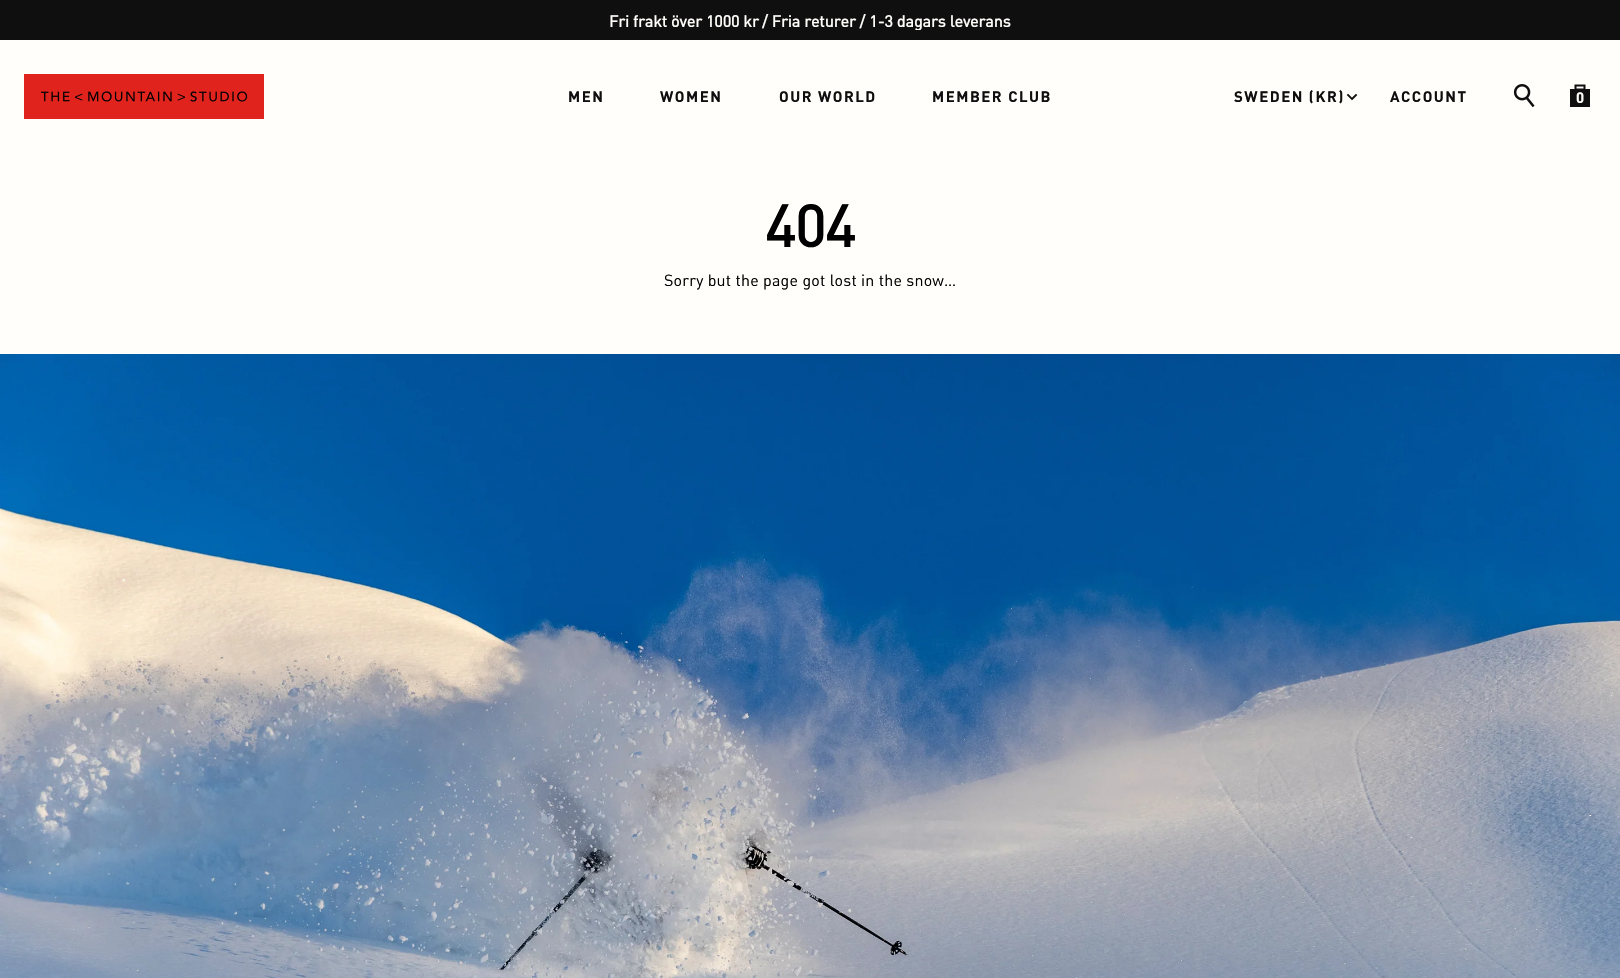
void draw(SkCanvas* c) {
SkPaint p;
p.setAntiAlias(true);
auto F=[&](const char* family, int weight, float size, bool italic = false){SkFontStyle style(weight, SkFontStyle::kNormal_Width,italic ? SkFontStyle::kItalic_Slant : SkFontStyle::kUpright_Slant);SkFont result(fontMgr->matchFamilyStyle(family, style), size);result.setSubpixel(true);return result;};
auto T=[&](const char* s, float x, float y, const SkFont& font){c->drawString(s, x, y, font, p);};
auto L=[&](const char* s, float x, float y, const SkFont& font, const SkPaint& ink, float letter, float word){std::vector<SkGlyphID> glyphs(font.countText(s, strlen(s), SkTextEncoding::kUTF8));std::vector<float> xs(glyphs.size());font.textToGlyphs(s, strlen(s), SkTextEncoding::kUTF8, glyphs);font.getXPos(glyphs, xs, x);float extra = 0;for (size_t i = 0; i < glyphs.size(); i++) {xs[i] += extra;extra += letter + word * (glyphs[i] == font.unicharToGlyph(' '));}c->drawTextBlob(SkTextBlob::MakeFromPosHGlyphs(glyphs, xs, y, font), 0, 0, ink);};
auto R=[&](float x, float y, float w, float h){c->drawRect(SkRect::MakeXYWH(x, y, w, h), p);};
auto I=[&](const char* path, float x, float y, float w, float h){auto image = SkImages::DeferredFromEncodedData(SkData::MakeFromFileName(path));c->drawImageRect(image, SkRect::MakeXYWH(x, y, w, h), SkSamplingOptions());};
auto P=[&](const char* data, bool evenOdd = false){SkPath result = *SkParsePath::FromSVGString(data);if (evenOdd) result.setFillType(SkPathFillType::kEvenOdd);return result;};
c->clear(0xfffffefa);
p.setColor(0xff0f0f0f);
R(0,0,1620,40);
auto f1 = F("DIN",700,16);
p.setColor(0xfffffefa);
T("Fri frakt över 1000 kr",609,27,f1);
c->save();
c->clipRect(SkRect::MakeXYWH(609,10,402,20));
T("/ Fria returer / 1-3 dagars leverans",762,27,f1);
c->restore();
I("1.png",24,74,240,45);
auto f2 = F("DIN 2",700,15);
p.setColor(0xff0f0f0f);
L("MEN",568,102,f2,p,1.5,0);
L("WOMEN",660,102,f2,p,1.5,0);
L("OUR WORLD",779,102,f2,p,1.5,0);
L("MEMBER CLUB",932,102,f2,p,1.5,0);
L("SWEDEN (KR)",1234,102,f2,p,1.5,0);
p.setStroke(true);
p.setStrokeWidth(1.8);
p.setStrokeCap(SkPaint::kSquare_Cap);
c->drawPath(P("M1356 95l-4 4m-4-4l4 4"),p);
p.setStroke(false);
L("ACCOUNT",1390,102,f2,p,1.5,0);
I("2.png",1513,84,22,24);
p.setStroke(true);
p.setStrokeWidth(2);
p.setStrokeCap(SkPaint::kButt_Cap);
c->drawPath(P("M1584.5 85.5h-9v4h9z"),p);
p.setStroke(false);
R(1570,89,20,18);
p.setColor(0xfffffefa);
T("0",1576,103,f2);
auto f3 = F("DIN",500,60);
p.setColor(0xff000000);
L("404",765,247,f3,p,-2,0);
auto f4 = F("DIN",400,16);
L("Sorry but the page got lost in the snow…",664,286,f4,p,.2,0);
I("3.png",0,354,1620,624);
}
